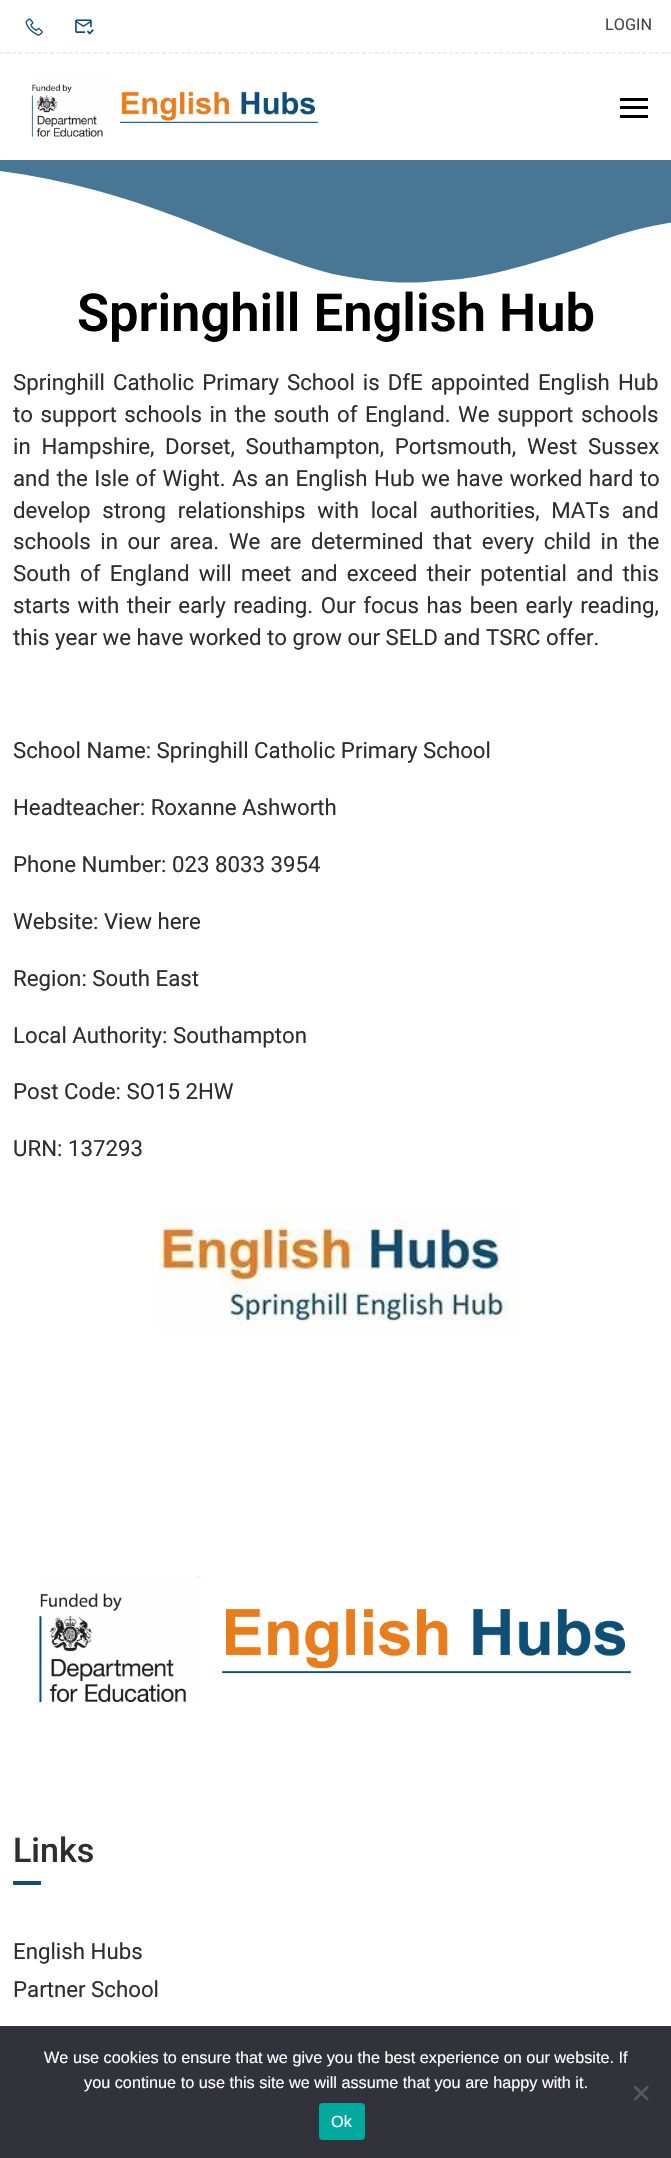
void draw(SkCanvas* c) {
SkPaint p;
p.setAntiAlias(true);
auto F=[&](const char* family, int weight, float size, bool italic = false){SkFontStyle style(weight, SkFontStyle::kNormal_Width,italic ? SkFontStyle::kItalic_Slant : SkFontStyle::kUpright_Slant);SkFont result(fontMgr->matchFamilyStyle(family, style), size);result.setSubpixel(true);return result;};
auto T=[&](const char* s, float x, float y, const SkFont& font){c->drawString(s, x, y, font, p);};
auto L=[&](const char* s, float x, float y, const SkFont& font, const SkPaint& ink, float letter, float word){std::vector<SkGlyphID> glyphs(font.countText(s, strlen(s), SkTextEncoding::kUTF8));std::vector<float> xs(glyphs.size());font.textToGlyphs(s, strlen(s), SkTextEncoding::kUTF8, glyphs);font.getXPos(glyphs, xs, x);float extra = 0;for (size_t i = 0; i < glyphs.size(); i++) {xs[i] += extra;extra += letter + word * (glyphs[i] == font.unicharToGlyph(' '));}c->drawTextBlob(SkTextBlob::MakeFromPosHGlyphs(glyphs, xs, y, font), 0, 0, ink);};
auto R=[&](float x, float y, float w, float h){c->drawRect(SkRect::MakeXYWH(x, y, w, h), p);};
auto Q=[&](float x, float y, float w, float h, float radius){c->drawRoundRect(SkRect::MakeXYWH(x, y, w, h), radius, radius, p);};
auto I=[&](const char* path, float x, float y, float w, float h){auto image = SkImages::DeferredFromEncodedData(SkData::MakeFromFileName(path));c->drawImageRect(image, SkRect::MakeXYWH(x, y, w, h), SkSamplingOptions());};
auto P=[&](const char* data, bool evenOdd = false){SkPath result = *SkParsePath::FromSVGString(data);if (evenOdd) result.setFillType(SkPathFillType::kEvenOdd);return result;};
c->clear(0xffffffff);
p.setColor(0xff477795);
c->drawPath(P("M-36 167c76 7 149 23 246 63c38 16 98 39 128 45c30 6 67 10 97 6c13-1 29-1 64-9c34-8 74-21 101-31c53-20 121-27 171-28c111-2 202 39 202 39v-93h-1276v43c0 0 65-24 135-32c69-7 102-5 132-3z"),p);
p.setColor(0xffffffff);
R(0,159,671,1);
p.setStroke(true);
p.setStrokeWidth(1.2);
p.setColor(0xffdddddd);
p.setPathEffect(SkDashPathEffect::Make({{3.75f,2.49f}}, 0));
c->drawPath(P("M0 53h671"),p);
p.setPathEffect(nullptr);
I("1.png",25,18,18,18);
I("2.png",75,19,19,16);
auto f1 = F("Roboto",400,16.25);
p.setStroke(false);
p.setColor(0xff45444b);
T("LOGIN",605,30,f1);
I("3.png",31,76,288,61);
p.setColor(0xff000000);
R(620,98,28,3);
R(620,106,28,3);
R(620,115,28,3);
auto f2 = F("Roboto",600,52.5);
T("Springhill English Hub",77,331,f2);
auto f3 = F("Roboto",400,22.25);
p.setColor(0xff2e2e2e);
L("Springhill Catholic Primary School is DfE appointed English Hub",13,390,f3,p,0,2.5);
L("to support schools in the south of England. We support schools",13,422,f3,p,0,2);
L("in Hampshire, Dorset, Southampton, Portsmouth, West Sussex",13,454,f3,p,0,5.25);
L("and the Isle of Wight. As an English Hub we have worked hard to",13,486,f3,p,0,1);
L("develop strong relationships with local authorities, MATs and",13,518,f3,p,0,6.25);
L("schools in our area. We are determined that every child in the",13,549,f3,p,0,4.1);
L("South of England will meet and exceed their potential and this",13,581,f3,p,0,3.75);
L("starts with their early reading. Our focus has been early reading,",13,613,f3,p,0,1.9);
T("this year we have worked to grow our SELD and TSRC offer.",13,645,f3);
T("School Name: Springhill Catholic Primary School",13,758,f3);
T("Headteacher: Roxanne Ashworth",13,815,f3);
T("Phone Number: 023 8033 3954",13,872,f3);
T("Website: View here",13,929,f3);
T("Region: South East",13,986,f3);
T("Local Authority: Southampton",13,1043,f3);
T("Post Code: SO15 2HW",13,1099,f3);
T("URN: 137293",13,1156,f3);
I("4.png",158,1210,361,120);
I("5.png",39,1576,592,127);
auto f4 = F("Roboto",500,34);
T("Links",13,1862,f4);
p.setColor(0xff104f75);
R(13,1881,28,4);
p.setColor(0xff2e2e2e);
T("English Hubs",13,1959,f3);
T("Partner School",13,1997,f3);
p.setColor(0xff32323a);
R(0,2026,671,132);
auto f5 = F("Liberation Sans",400,16.25);
p.setColor(0xffffffff);
T("We use cookies to ensure that we give you the best experience on our website. If",44,2063,f5);
T("you continue to use this site we will assume that you are happy with it.",84,2088,f5);
p.setColor(0xff59595d);
c->drawPath(P("M647 2085.5l2 2l-13.5 13l-2-1.5z"),p);
c->drawPath(P("M633.5 2087.5l2-2l13.5 13.5l-2 1.5z"),p);
p.setColor(0xff00a99d);
Q(319,2103,46,37,4);
p.setColor(0xffffffff);
T("Ok",331,2127,f5);
}
